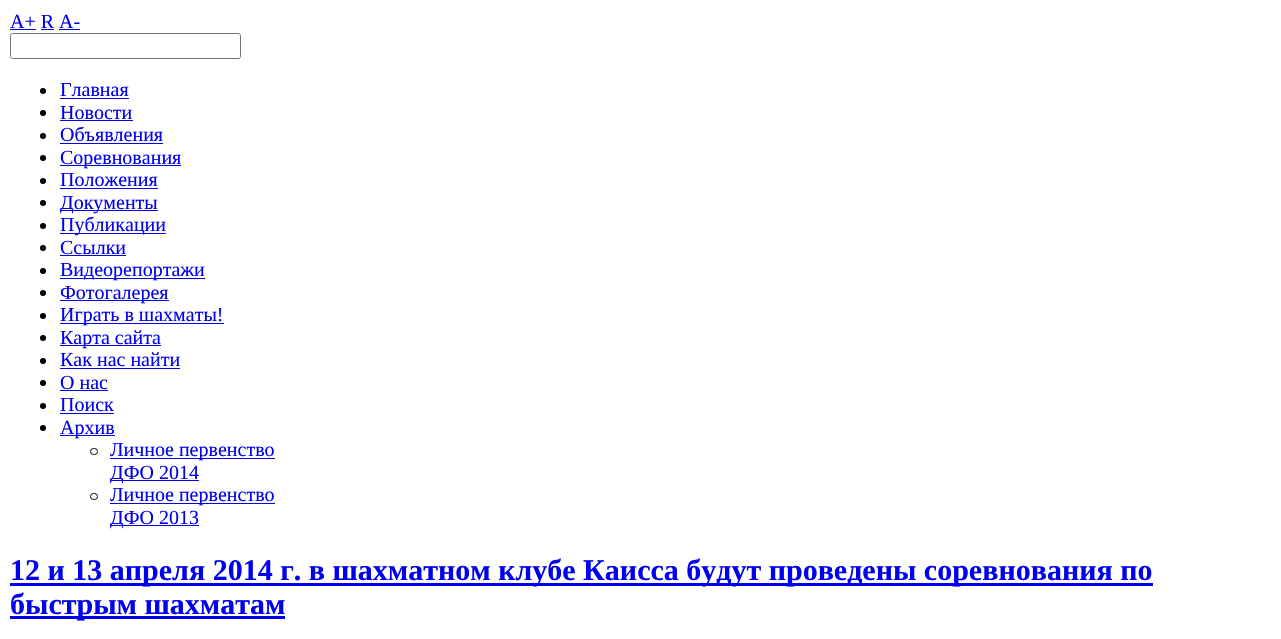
void draw(SkCanvas* c) {
SkPaint p;
p.setAntiAlias(true);
auto F=[&](const char* family, int weight, float size, bool italic = false){SkFontStyle style(weight, SkFontStyle::kNormal_Width,italic ? SkFontStyle::kItalic_Slant : SkFontStyle::kUpright_Slant);SkFont result(fontMgr->matchFamilyStyle(family, style), size);result.setSubpixel(true);return result;};
auto T=[&](const char* s, float x, float y, const SkFont& font){c->drawString(s, x, y, font, p);};
auto R=[&](float x, float y, float w, float h){c->drawRect(SkRect::MakeXYWH(x, y, w, h), p);};
c->clear(0xffffffff);
auto f1 = F("Liberation Serif",400,20);
p.setColor(0xff0000ee);
T("A+ R A-",10,28,f1);
R(10,29,26,1);
R(41,29,13,1);
R(59,29,21,1);
p.setStroke(true);
p.setStrokeWidth(1);
p.setColor(0xff767676);
c->drawRoundRect(SkRect::MakeXYWH(10.5,33.5,230,25),2,2,p);
p.setStroke(false);
p.setColor(0xff000000);
c->drawCircle(43,91,3,p);
p.setColor(0xff0000ee);
T("Главная",60,96,f1);
R(60,98,69,1);
p.setColor(0xff000000);
c->drawCircle(43,113,3,p);
p.setColor(0xff0000ee);
T("Новости",60,119,f1);
R(60,120,73,1);
p.setColor(0xff000000);
c->drawCircle(43,136,3,p);
p.setColor(0xff0000ee);
T("Объявления",60,141,f1);
R(60,143,103,1);
p.setColor(0xff000000);
c->drawCircle(43,158,3,p);
p.setColor(0xff0000ee);
R(60,165,121,1);
T("Соревнования",60,164,f1);
p.setColor(0xff000000);
c->drawCircle(43,181,3,p);
p.setColor(0xff0000ee);
T("Положения",60,186,f1);
R(60,188,98,1);
p.setColor(0xff000000);
c->drawCircle(43,203,3,p);
p.setColor(0xff0000ee);
R(60,210,98,1);
T("Документы",60,209,f1);
p.setColor(0xff000000);
c->drawCircle(43,226,3,p);
p.setColor(0xff0000ee);
R(60,233,106,1);
T("Публикации",60,231,f1);
p.setColor(0xff000000);
c->drawCircle(43,248,3,p);
p.setColor(0xff0000ee);
T("Ссылки",60,254,f1);
R(60,255,66,1);
p.setColor(0xff000000);
c->drawCircle(43,271,3,p);
p.setColor(0xff0000ee);
R(60,278,145,1);
T("Видеорепортажи",60,276,f1);
p.setColor(0xff000000);
c->drawCircle(43,293,3,p);
p.setColor(0xff0000ee);
R(60,300,109,1);
T("Фотогалерея",60,299,f1);
p.setColor(0xff000000);
c->drawCircle(43,316,3,p);
p.setColor(0xff0000ee);
R(60,323,164,1);
T("Играть в шахматы!",60,321,f1);
p.setColor(0xff000000);
c->drawCircle(43,338,3,p);
p.setColor(0xff0000ee);
R(60,345,101,1);
T("Карта сайта",60,344,f1);
p.setColor(0xff000000);
c->drawCircle(43,361,3,p);
p.setColor(0xff0000ee);
T("Как нас найти",60,366,f1);
R(60,368,120,1);
p.setColor(0xff000000);
c->drawCircle(43,383,3,p);
p.setColor(0xff0000ee);
T("О нас",60,389,f1);
R(60,390,48,1);
p.setColor(0xff000000);
c->drawCircle(43,406,3,p);
p.setColor(0xff0000ee);
T("Поиск",60,411,f1);
R(60,413,54,1);
p.setColor(0xff000000);
c->drawCircle(43,428,3,p);
p.setColor(0xff0000ee);
R(60,435,55,1);
T("Архив",60,434,f1);
p.setStroke(true);
p.setColor(0xff000000);
c->drawRoundRect(SkRect::MakeXYWH(90.5,448.5,7,6),3,3,p);
p.setStroke(false);
p.setColor(0xff0000ee);
R(110,458,165,1);
T("Личное первенство",110,456,f1);
R(110,480,89,1);
T("ДФО 2014",110,479,f1);
p.setStroke(true);
p.setColor(0xff000000);
c->drawRoundRect(SkRect::MakeXYWH(90.5,493.5,7,6),3,3,p);
p.setStroke(false);
p.setColor(0xff0000ee);
R(110,503,165,1);
T("Личное первенство",110,501,f1);
R(110,525,89,1);
T("ДФО 2013",110,524,f1);
R(10,583,1143,3);
auto f2 = F("Liberation Serif",700,30);
T("12 и 13 апреля 2014 г. в шахматном клубе Каисса будут проведены соревнования по",10,580,f2);
R(10,616,275,3);
T("быстрым шахматам",10,614,f2);
}
